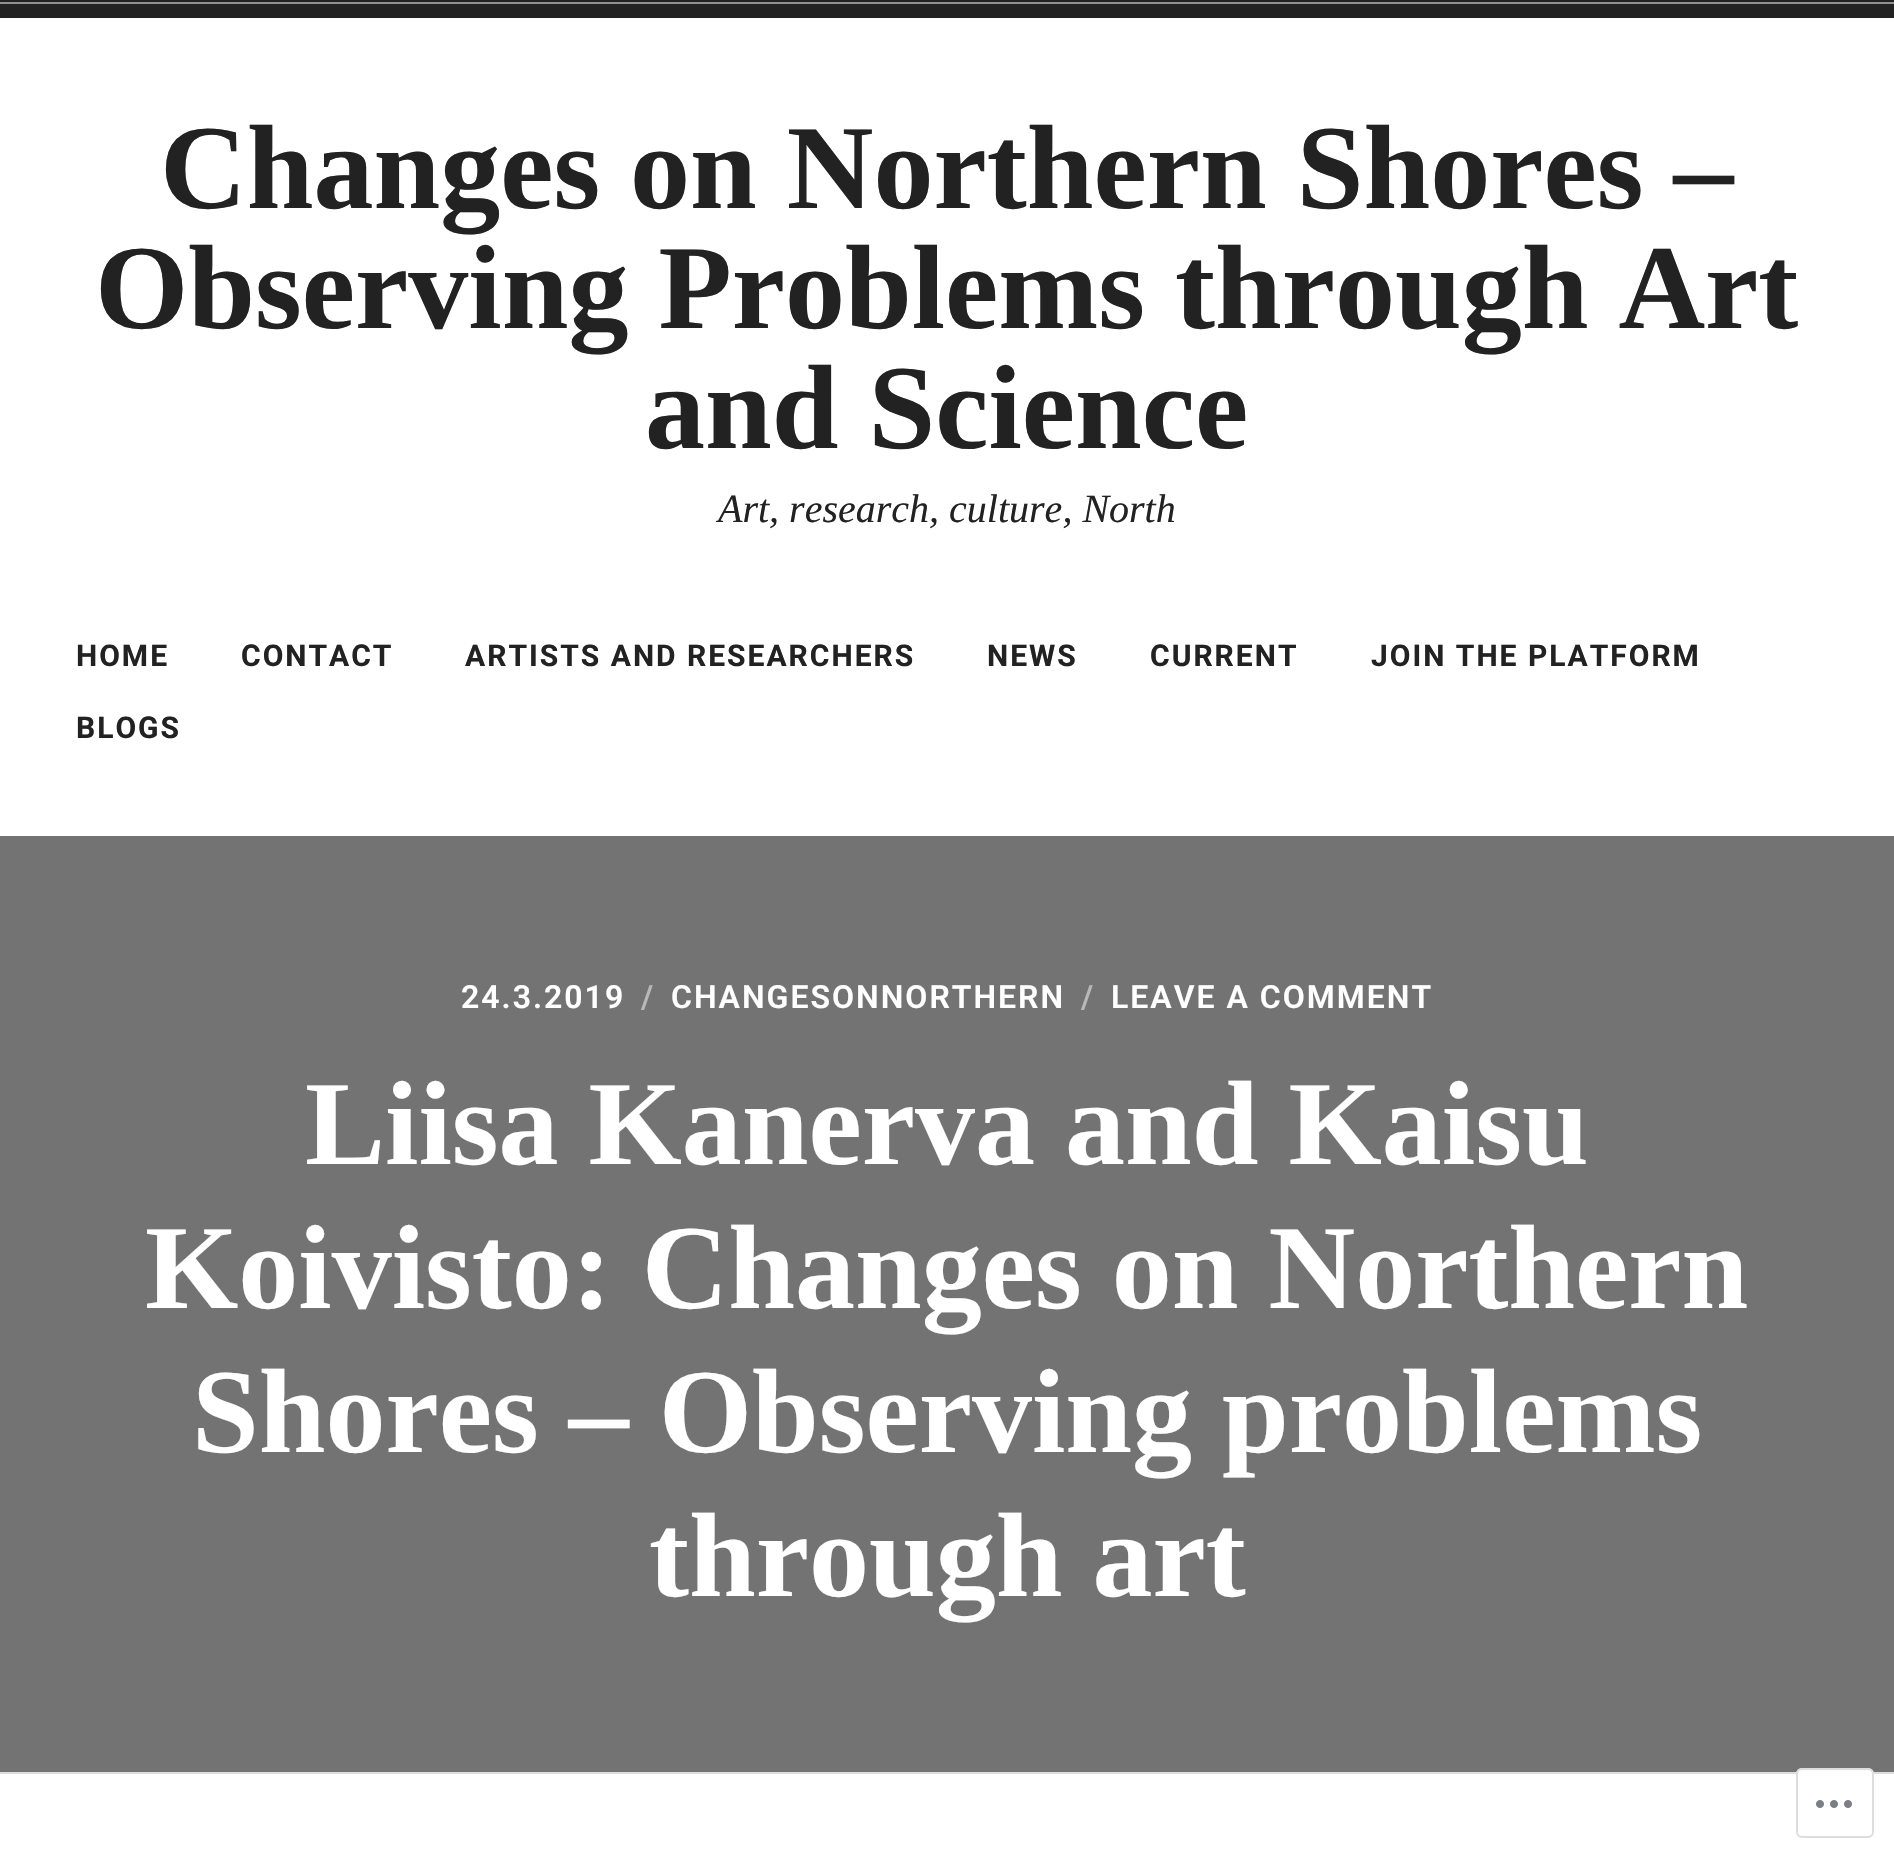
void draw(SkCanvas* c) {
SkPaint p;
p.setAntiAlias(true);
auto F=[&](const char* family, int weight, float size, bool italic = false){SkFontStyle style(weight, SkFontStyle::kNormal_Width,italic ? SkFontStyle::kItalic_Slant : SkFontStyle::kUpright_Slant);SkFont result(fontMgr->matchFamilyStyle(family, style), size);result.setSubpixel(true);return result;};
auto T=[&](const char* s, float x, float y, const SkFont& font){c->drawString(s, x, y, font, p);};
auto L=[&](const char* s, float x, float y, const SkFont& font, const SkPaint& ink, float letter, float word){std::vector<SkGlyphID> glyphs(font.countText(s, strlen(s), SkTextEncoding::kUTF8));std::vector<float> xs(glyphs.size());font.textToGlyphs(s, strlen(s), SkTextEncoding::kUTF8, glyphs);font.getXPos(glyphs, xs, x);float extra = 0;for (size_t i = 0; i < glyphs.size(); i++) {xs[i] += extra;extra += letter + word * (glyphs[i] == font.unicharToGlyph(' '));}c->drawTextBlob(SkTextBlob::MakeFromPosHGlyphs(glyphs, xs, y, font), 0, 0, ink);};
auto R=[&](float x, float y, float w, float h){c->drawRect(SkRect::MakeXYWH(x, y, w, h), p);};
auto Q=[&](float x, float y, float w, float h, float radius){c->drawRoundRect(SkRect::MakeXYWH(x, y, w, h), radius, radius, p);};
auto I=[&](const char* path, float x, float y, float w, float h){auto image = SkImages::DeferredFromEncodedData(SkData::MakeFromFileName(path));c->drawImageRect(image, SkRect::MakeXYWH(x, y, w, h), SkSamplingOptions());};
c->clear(0xffffffff);
p.setColor(0xff222222);
R(0,0,1894,18);
p.setColor(0xff919191);
R(0,2,1894,2);
auto f1 = F("Liberation Serif",700,120);
p.setColor(0xff222222);
T("Changes on Northern Shores –",160,208,f1);
T("Observing Problems through Art",95,328,f1);
T("and Science",645,448,f1);
auto f2 = F("Liberation Serif",400,40,true);
T("Art, research, culture, North",718,522,f2);
auto f3 = F("Roboto",700,30);
L("HOME",76,666,f3,p,2,0);
L("CONTACT",241,666,f3,p,2,0);
L("ARTISTS AND RESEARCHERS",465,666,f3,p,2,0);
L("NEWS",987,666,f3,p,2,0);
L("CURRENT",1150,666,f3,p,2,0);
L("JOIN THE PLATFORM",1371,666,f3,p,2,0);
L("BLOGS",76,738,f3,p,2,0);
p.setColor(0xff737373);
R(0,836,1894,936);
auto f4 = F("Roboto",600,32);
p.setColor(0xffffffff);
L("24.3.2019",461,1008,f4,p,2,0);
p.setColor(0xffb9b9b9);
L("/",641,1008,f4,p,2,0);
p.setColor(0xffffffff);
L("CHANGESONNORTHERN",671,1008,f4,p,2,0);
p.setColor(0xffb9b9b9);
L("/",1081,1008,f4,p,2,0);
p.setColor(0xffffffff);
L("LEAVE A COMMENT",1111,1008,f4,p,2,0);
T("Liisa Kanerva and Kaisu",305,1164,f1);
T("Koivisto: Changes on Northern",145,1308,f1);
T("Shores – Observing problems",192,1452,f1);
T("through art",649,1596,f1);
p.setColor(0xffdddddd);
R(0,1772,1894,2);
p.setColor(0xfaffffff);
Q(1796,1768,78,70,6);
p.setStroke(true);
p.setStrokeWidth(2);
p.setColor(0xfadcdcde);
c->drawRoundRect(SkRect::MakeXYWH(1797,1769,76,68),5,5,p);
I("1.png",1816,1800,36,8);
}
